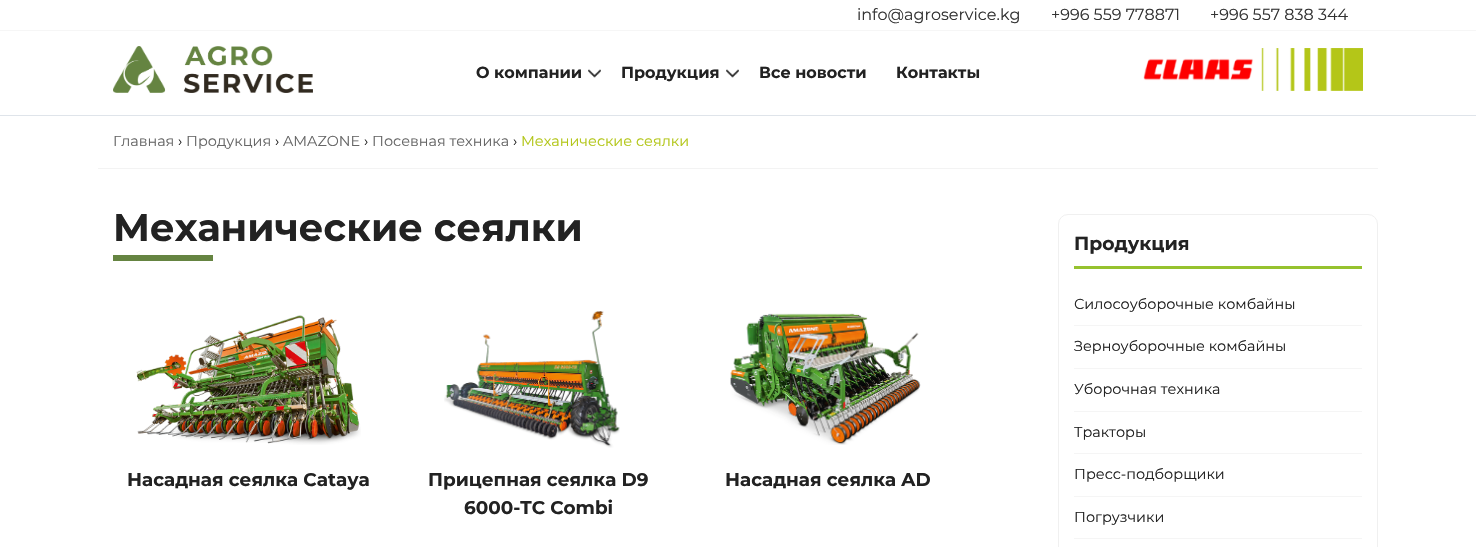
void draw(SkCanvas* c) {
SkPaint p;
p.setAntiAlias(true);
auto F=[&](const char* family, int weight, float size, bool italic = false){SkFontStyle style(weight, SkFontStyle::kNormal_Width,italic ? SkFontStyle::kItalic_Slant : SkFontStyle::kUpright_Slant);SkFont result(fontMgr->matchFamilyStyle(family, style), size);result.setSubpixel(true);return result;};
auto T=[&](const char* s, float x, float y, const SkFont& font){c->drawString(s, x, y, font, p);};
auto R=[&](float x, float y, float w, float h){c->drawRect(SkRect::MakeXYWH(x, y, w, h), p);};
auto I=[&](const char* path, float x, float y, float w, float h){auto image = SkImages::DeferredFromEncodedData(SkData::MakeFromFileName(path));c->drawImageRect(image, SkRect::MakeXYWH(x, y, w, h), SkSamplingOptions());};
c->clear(0xffffffff);
p.setColor(0xfff6f6f6);
R(0,30,1476,1);
auto f1 = F("Montserrat",400,16);
p.setColor(0xff333333);
T("info@agroservice.kg",857,20,f1);
T("+996 559 778871",1051,20,f1);
T("+996 557 838 344",1210,20,f1);
p.setColor(0xffdfe4ea);
R(0,115,1476,1);
I("1.png",113,46,200,47);
I("2.png",588,69,13,9);
auto f2 = F("Montserrat",700,16);
p.setColor(0xff222222);
T("О компании",476,78,f2);
I("2.png",726,69,13,9);
T("Продукция",621,78,f2);
T("Все новости",759,78,f2);
T("Контакты",896,78,f2);
I("3.png",1143,48,220,43);
p.setColor(0xfff3f3f3);
R(98,168,1280,1);
auto f3 = F("Montserrat",400,14.4);
p.setColor(0xff666666);
T("Главная",113,146,f3);
p.setColor(0xff222222);
T("›",178,146,f3);
p.setColor(0xff666666);
T("Продукция",186,146,f3);
p.setColor(0xff222222);
T("›",275,146,f3);
p.setColor(0xff666666);
T("AMAZONE",283,146,f3);
p.setColor(0xff222222);
T("›",364,146,f3);
p.setColor(0xff666666);
T("Посевная техника",372,146,f3);
p.setColor(0xff222222);
T("›",513,146,f3);
p.setColor(0xffb3c618);
T("Механические сеялки",521,146,f3);
auto f4 = F("Montserrat",700,38.4);
p.setColor(0xff222222);
T("Механические сеялки",113,241,f4);
p.setColor(0xff658441);
R(113,255,100,6);
I("4.png",136,315,225,130);
auto f5 = F("Montserrat",700,18.4);
p.setColor(0xff222222);
T("Насадная сеялка Cataya",127,486,f5);
I("5.png",444,311,176,137);
T("Прицепная сеялка D9",428,486,f5);
T("6000-TC Combi",464,514,f5);
I("6.png",730,313,191,132);
T("Насадная сеялка AD",725,486,f5);
p.setStroke(true);
p.setStrokeWidth(1);
p.setColor(0xfff0f0f0);
c->drawRoundRect(SkRect::MakeXYWH(1058.5,214.5,319,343),9.5,9.5,p);
p.setStroke(false);
p.setColor(0xff96c22f);
R(1074,266,288,3);
auto f6 = F("Montserrat",700,18.75);
p.setColor(0xff222222);
T("Продукция",1074,250,f6);
p.setColor(0xfff5f5f5);
R(1074,325,288,1);
p.setColor(0xff222222);
T("Силосоуборочные комбайны",1074,309,f3);
p.setColor(0xfff5f5f5);
R(1074,368,288,1);
p.setColor(0xff222222);
T("Зерноуборочные комбайны",1074,351,f3);
p.setColor(0xfff5f5f5);
R(1074,411,288,1);
p.setColor(0xff222222);
T("Уборочная техника",1074,394,f3);
p.setColor(0xfff5f5f5);
R(1074,453,288,1);
p.setColor(0xff222222);
T("Тракторы",1074,437,f3);
p.setColor(0xfff5f5f5);
R(1074,496,288,1);
p.setColor(0xff222222);
T("Пресс-подборщики",1074,479,f3);
p.setColor(0xfff5f5f5);
R(1074,538,288,1);
p.setColor(0xff222222);
T("Погрузчики",1074,522,f3);
}
